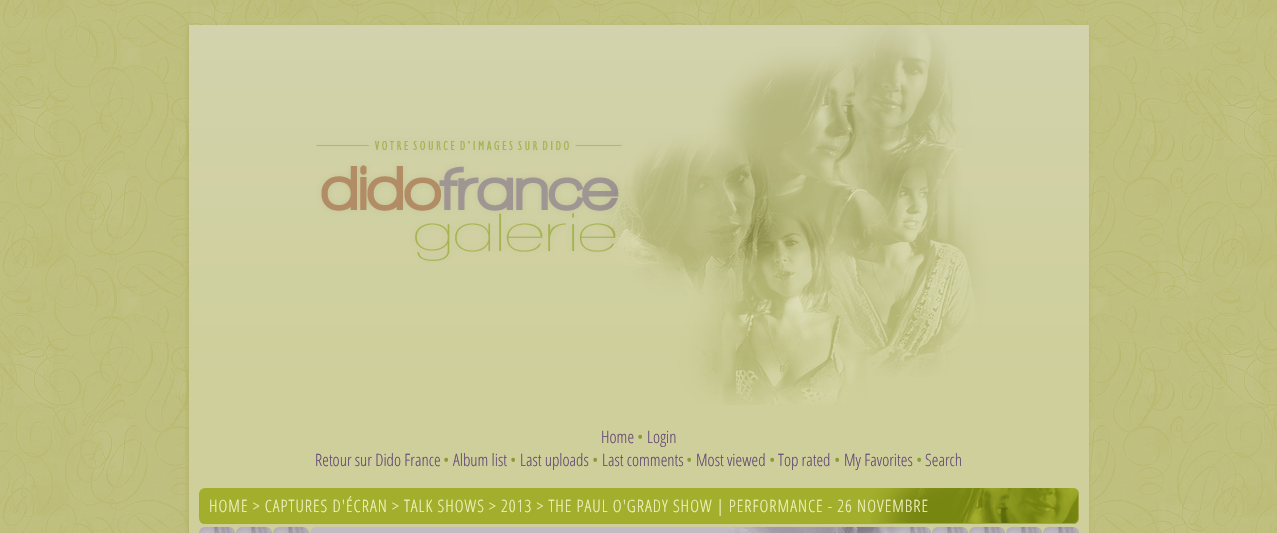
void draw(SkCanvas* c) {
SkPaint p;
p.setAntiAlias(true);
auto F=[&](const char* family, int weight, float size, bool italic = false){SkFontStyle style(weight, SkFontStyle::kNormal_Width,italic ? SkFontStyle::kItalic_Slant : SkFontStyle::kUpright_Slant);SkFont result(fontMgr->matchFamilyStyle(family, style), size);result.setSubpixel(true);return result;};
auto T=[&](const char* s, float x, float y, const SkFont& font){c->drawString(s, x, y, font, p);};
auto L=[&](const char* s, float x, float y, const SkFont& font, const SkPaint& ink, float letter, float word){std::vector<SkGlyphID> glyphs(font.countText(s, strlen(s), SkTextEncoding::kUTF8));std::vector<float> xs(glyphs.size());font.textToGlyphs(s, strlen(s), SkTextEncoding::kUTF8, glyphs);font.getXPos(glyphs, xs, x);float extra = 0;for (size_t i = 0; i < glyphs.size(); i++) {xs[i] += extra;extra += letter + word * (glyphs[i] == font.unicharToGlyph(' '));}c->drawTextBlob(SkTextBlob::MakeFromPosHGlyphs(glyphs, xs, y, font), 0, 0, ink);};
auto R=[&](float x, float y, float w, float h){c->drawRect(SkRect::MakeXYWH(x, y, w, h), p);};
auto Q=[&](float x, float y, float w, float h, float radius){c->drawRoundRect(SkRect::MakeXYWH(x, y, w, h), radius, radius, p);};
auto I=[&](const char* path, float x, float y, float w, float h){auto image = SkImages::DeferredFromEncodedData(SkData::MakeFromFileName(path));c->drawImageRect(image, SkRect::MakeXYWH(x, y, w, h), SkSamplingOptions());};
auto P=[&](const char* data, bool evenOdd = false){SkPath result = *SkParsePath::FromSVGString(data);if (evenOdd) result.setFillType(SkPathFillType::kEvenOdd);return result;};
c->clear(0xffffffff);
I("1.png",0,0,1277,533);
p.setColor(0x4da0a045);
p.setMaskFilter(SkMaskFilter::MakeBlur(kNormal_SkBlurStyle, 2.5));
c->drawRect(SkRect::MakeXYWH(187,26,902,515),p);
p.setMaskFilter(nullptr);
p.setColor(0xffcecf9a);
R(189,405,900,128);
I("2.png",189,25,900,380);
auto f1 = F("Open Sans Condensed",300,17);
p.setColor(0xff634676);
T("Home",601,443,f1);
p.setColor(0xff8a9939);
T("•",637,443,f1);
p.setColor(0xff634676);
T("Login",647,443,f1);
T("Retour sur Dido France",315,466,f1);
p.setColor(0xff8a9939);
T("•",443,466,f1);
p.setColor(0xff634676);
T("Album list",453,466,f1);
p.setColor(0xff8a9939);
T("•",510,466,f1);
p.setColor(0xff634676);
T("Last uploads",520,466,f1);
p.setColor(0xff8a9939);
T("•",592,466,f1);
p.setColor(0xff634676);
T("Last comments",602,466,f1);
p.setColor(0xff8a9939);
T("•",686,466,f1);
p.setColor(0xff634676);
T("Most viewed",696,466,f1);
p.setColor(0xff8a9939);
T("•",769,466,f1);
p.setColor(0xff634676);
T("Top rated",778,466,f1);
p.setColor(0xff8a9939);
T("•",834,466,f1);
p.setColor(0xff634676);
T("My Favorites",844,466,f1);
p.setColor(0xff8a9939);
T("•",916,466,f1);
p.setColor(0xff634676);
T("Search",925,466,f1);
p.setColor(0xffa3ae2c);
Q(199,488,880,36,6);
I("3.png",871,488,207,36);
p.setColor(0xffa3a547);
c->drawPath(P("M205 488h868c3 0 6 3 6 6v24c0 3-3 6-6 6h-868c-3 0-6-3-6-6v-24c0-3 3-6 6-6zm0 0h868c3 0 5 3 5 6v24c0 3-2 5-5 5h-868c-3 0-6-2-6-5v-24c0-3 3-6 6-6z",true),p);
p.setColor(0xfff0f4c0);
L("HOME > CAPTURES D'ÉCRAN > TALK SHOWS > 2013 > THE PAUL O'GRADY SHOW | PERFORMANCE - 26 NOVEMBRE",209,512,f1,p,1,0);
I("4.png",199,527,36,6);
I("4.png",236,527,36,6);
I("4.png",273,527,36,6);
p.setColor(0xffc1bbc4);
Q(310,527,621,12,6);
I("5.png",729,527,202,6);
I("4.png",932,527,36,6);
I("4.png",969,527,36,6);
I("4.png",1006,527,36,6);
I("4.png",1043,527,36,6);
}
